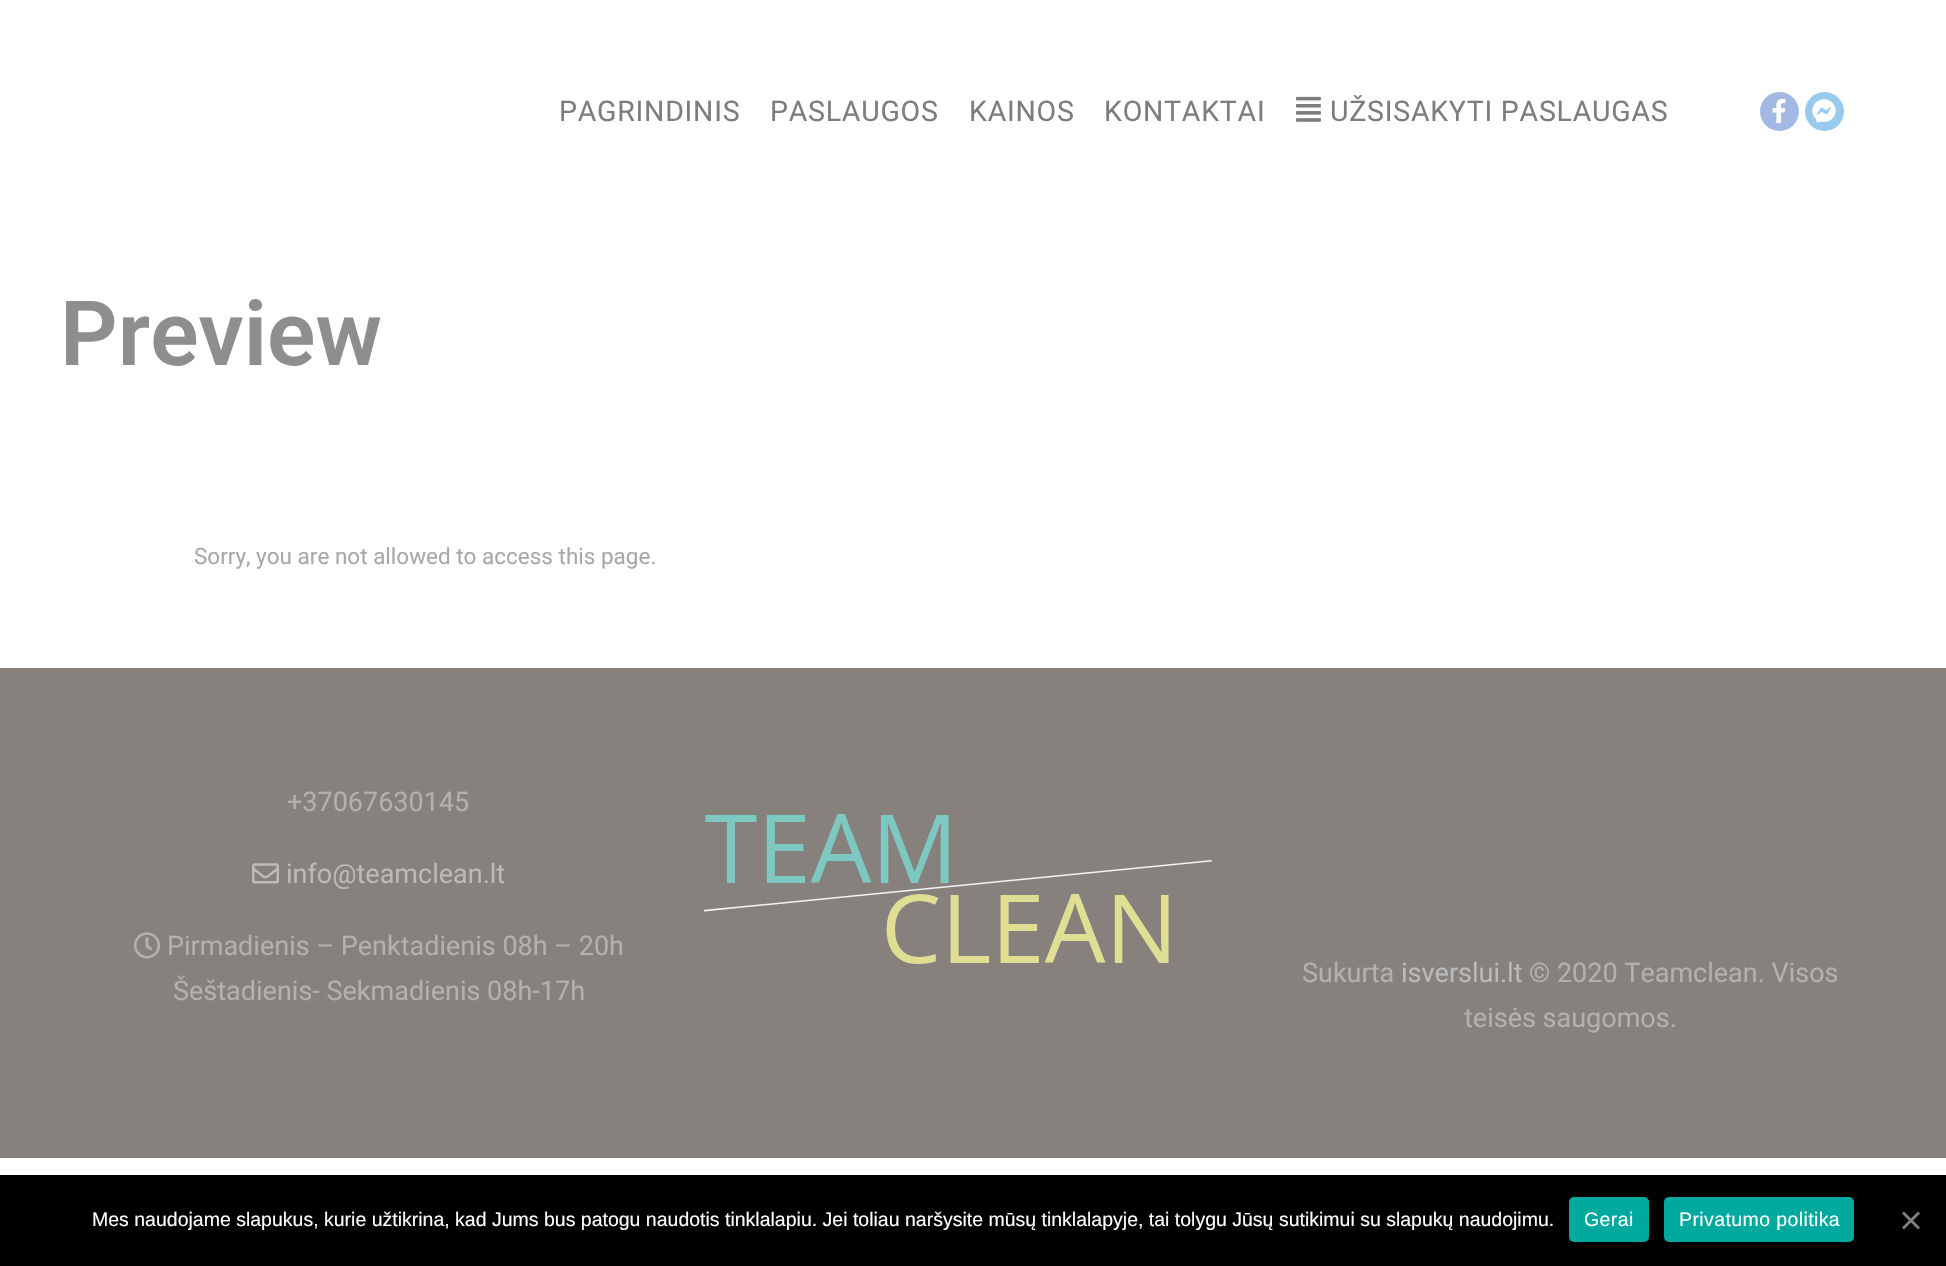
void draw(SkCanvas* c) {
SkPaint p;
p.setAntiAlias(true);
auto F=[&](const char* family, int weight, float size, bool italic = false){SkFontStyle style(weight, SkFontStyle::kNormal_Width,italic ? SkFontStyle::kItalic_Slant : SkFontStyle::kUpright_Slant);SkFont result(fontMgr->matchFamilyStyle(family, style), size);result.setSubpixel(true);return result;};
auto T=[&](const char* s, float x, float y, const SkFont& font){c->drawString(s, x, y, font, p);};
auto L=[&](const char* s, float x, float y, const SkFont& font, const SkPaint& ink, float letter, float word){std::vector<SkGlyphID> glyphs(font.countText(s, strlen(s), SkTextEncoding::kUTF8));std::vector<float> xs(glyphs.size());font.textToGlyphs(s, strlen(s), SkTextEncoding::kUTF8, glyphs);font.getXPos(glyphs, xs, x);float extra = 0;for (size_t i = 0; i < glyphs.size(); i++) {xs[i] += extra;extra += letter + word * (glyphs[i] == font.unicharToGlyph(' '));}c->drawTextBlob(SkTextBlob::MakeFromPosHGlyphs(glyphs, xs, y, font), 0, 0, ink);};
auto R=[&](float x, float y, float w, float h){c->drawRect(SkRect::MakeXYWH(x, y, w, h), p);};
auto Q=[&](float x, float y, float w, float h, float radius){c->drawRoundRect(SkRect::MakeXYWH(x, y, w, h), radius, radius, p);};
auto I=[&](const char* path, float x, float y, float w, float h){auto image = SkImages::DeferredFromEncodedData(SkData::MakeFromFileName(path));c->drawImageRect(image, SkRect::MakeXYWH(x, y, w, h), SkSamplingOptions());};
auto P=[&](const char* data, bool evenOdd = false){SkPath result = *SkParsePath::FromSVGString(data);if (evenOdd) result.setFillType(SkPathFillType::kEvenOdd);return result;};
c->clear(0xffffffff);
auto f1 = F("Roboto",400,28.5);
p.setColor(0xff7d7d7d);
L("PAGRINDINIS",559,121,f1,p,.75,0);
L("PASLAUGOS",770,121,f1,p,.75,0);
L("KAINOS",969,121,f1,p,.75,0);
L("KONTAKTAI",1104,121,f1,p,.75,0);
I("1.png",1296,96,25,26);
L("UŽSISAKYTI PASLAUGAS",1330,121,f1,p,.75,0);
p.setColor(0xffa3b8e3);
c->drawCircle(1779.5,111.5,19.5,p);
I("2.png",1772,99,14,24);
p.setColor(0xff97caed);
c->drawCircle(1824.5,111.5,19.5,p);
I("3.png",1812,99,24,24);
auto f2 = F("Roboto",600,90);
p.setColor(0xff8e8e8e);
T("Preview",60,365,f2);
auto f3 = F("Roboto",400,22.5);
p.setColor(0xffa8a8a8);
T("Sorry, you are not allowed to access this page.",194,564,f3);
p.setColor(0xff87817d);
R(0,668,1946,490);
auto f4 = F("Roboto",400,27);
p.setColor(0xffb1b1b1);
T("+37067630145",287,811,f4);
I("4.png",252,863,27,21);
p.setColor(0xffbababa);
T("info@teamclean.lt",286,883,f4);
I("5.png",133,932,28,27);
p.setColor(0xffb1b1b1);
T("Pirmadienis – Penktadienis 08h – 20h",167,955,f4);
T("Šeštadienis- Sekmadienis 08h-17h",173,1000,f4);
I("6.png",704,814,508,150);
T("Sukurta",1302,982,f4);
p.setColor(0xffbababa);
T("isverslui.lt",1401,982,f4);
p.setColor(0xffb1b1b1);
T("© 2020 Teamclean. Visos",1529,982,f4);
T("teisės saugomos.",1464,1027,f4);
p.setColor(0xff000000);
R(0,1175,1946,91);
auto f5 = F("Liberation Sans",400,19.5);
p.setColor(0xffffffff);
T("Mes naudojame slapukus, kurie užtikrina, kad Jums bus patogu naudotis tinklalapiu. Jei toliau naršysite mūsų tinklalapyje, tai tolygu Jūsų sutikimui su slapukų naudojimu.",92,1226,f5);
p.setColor(0xff00a99d);
Q(1569,1197,80,45,5);
p.setColor(0xffffffff);
L("Gerai",1584,1226,f5,p,.4,0);
p.setColor(0xff00a99d);
Q(1664,1197,190,45,5);
p.setColor(0xffffffff);
L("Privatumo politika",1679,1226,f5,p,.4,0);
p.setColor(0xff808080);
c->drawPath(P("M1918 1211.5l2 2l-16 16l-2-2z"),p);
c->drawPath(P("M1902 1213.5l2-2l16 16l-2 2z"),p);
}
